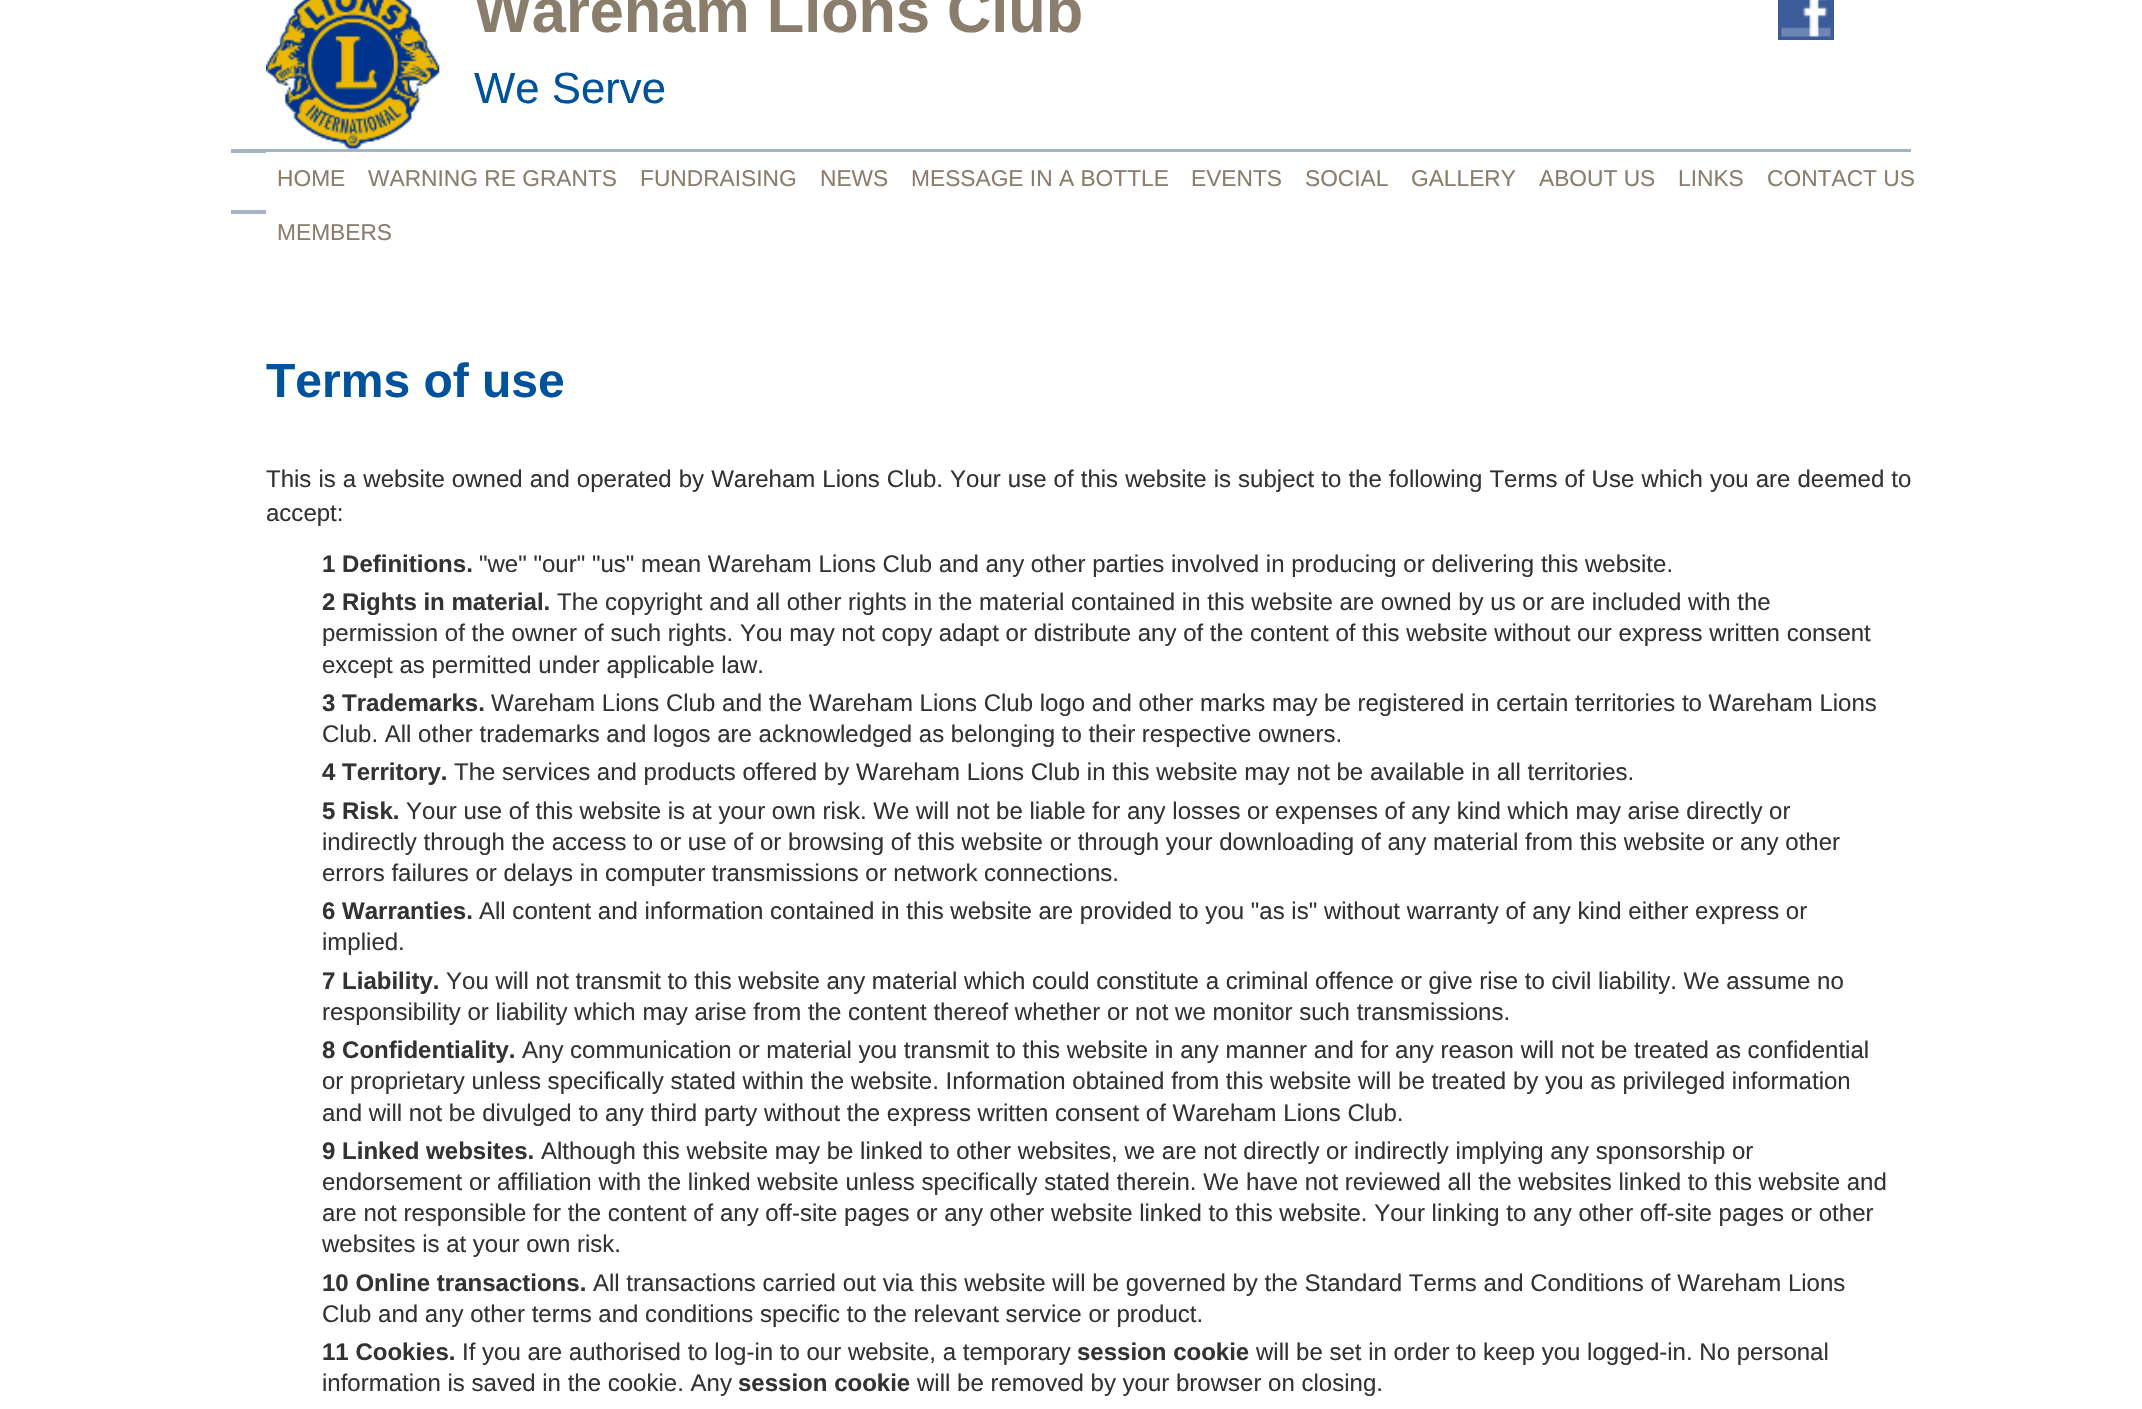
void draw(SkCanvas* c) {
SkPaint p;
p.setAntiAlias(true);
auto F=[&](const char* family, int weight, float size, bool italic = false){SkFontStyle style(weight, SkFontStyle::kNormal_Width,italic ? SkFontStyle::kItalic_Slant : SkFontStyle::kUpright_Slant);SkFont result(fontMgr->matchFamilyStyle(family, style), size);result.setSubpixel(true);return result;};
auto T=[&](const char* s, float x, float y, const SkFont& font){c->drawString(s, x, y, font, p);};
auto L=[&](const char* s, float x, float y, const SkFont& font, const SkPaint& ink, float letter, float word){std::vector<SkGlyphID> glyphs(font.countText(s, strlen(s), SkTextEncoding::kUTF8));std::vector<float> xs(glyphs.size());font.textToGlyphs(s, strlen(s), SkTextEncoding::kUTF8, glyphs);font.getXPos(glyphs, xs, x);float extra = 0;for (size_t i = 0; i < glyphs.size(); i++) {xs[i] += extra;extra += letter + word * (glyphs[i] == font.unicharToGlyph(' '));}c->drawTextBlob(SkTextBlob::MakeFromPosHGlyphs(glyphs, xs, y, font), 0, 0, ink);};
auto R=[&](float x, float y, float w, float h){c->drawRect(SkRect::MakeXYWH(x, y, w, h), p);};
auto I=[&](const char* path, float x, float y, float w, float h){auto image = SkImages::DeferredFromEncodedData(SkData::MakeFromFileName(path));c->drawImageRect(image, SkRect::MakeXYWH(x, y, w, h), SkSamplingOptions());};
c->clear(0xffffffff);
I("1.png",266,0,174,149);
auto f1 = F("Liberation Sans",700,61.25);
p.setColor(0xff8a7d6c);
T("Wareham Lions Club",474,32,f1);
I("2.png",1778,0,56,40);
auto f2 = F("Liberation Sans",400,43.75);
p.setColor(0xff00529c);
T("We Serve",474,103,f2);
p.setColor(0xffa3b4c8);
R(231,149,1680,4);
R(231,210,35,4);
p.setColor(0xffffffff);
R(266,152,1645,1);
auto f3 = F("Liberation Sans",400,22.75);
p.setColor(0xff8a7d6c);
T("HOME",277,186,f3);
T("WARNING RE GRANTS",368,186,f3);
T("FUNDRAISING",640,186,f3);
T("NEWS",820,186,f3);
T("MESSAGE IN A BOTTLE",911,186,f3);
T("EVENTS",1191,186,f3);
T("SOCIAL",1305,186,f3);
T("GALLERY",1411,186,f3);
T("ABOUT US",1539,186,f3);
T("LINKS",1678,186,f3);
T("CONTACT US",1767,186,f3);
T("MEMBERS",277,240,f3);
auto f4 = F("Liberation Sans",700,48);
p.setColor(0xff00529c);
T("Terms of use",266,397,f4);
auto f5 = F("Liberation Sans",400,24.02);
p.setColor(0xff333333);
L("This is a website owned and operated by Wareham Lions Club. Your use of this website is subject to the following Terms of Use which you are deemed to",266,487,f5,p,0,.4);
T("accept:",266,521,f5);
auto f6 = F("Liberation Sans",700,24.02);
T("1 Definitions.",322,572,f6);
T("\"we\" \"our\" \"us\" mean Wareham Lions Club and any other parties involved in producing or delivering this website.",479,572,f5);
T("2 Rights in material.",322,610,f6);
T("The copyright and all other rights in the material contained in this website are owned by us or are included with the",557,610,f5);
T("permission of the owner of such rights. You may not copy adapt or distribute any of the content of this website without our express written consent",322,641,f5);
T("except as permitted under applicable law.",322,673,f5);
T("3 Trademarks.",322,711,f6);
T("Wareham Lions Club and the Wareham Lions Club logo and other marks may be registered in certain territories to Wareham Lions",491,711,f5);
T("Club. All other trademarks and logos are acknowledged as belonging to their respective owners.",322,742,f5);
T("4 Territory.",322,780,f6);
T("The services and products offered by Wareham Lions Club in this website may not be available in all territories.",454,780,f5);
T("5 Risk.",322,819,f6);
T("Your use of this website is at your own risk. We will not be liable for any losses or expenses of any kind which may arise directly or",406,819,f5);
T("indirectly through the access to or use of or browsing of this website or through your downloading of any material from this website or any other",322,850,f5);
T("errors failures or delays in computer transmissions or network connections.",322,881,f5);
T("6 Warranties.",322,919,f6);
T("All content and information contained in this website are provided to you \"as is\" without warranty of any kind either express or",479,919,f5);
T("implied.",322,950,f5);
T("7 Liability.",322,989,f6);
T("You will not transmit to this website any material which could constitute a criminal offence or give rise to civil liability. We assume no",446,989,f5);
T("responsibility or liability which may arise from the content thereof whether or not we monitor such transmissions.",322,1020,f5);
T("8 Confidentiality.",322,1058,f6);
T("Any communication or material you transmit to this website in any manner and for any reason will not be treated as confidential",522,1058,f5);
T("or proprietary unless specifically stated within the website. Information obtained from this website will be treated by you as privileged information",322,1089,f5);
T("and will not be divulged to any third party without the express written consent of Wareham Lions Club.",322,1121,f5);
T("9 Linked websites.",322,1159,f6);
T("Although this website may be linked to other websites, we are not directly or indirectly implying any sponsorship or",541,1159,f5);
T("endorsement or affiliation with the linked website unless specifically stated therein. We have not reviewed all the websites linked to this website and",322,1190,f5);
T("are not responsible for the content of any off-site pages or any other website linked to this website. Your linking to any other off-site pages or other",322,1221,f5);
T("websites is at your own risk.",322,1252,f5);
T("10 Online transactions.",322,1291,f6);
T("All transactions carried out via this website will be governed by the Standard Terms and Conditions of Wareham Lions",593,1291,f5);
T("Club and any other terms and conditions specific to the relevant service or product.",322,1322,f5);
T("11 Cookies.",322,1360,f6);
T("If you are authorised to log-in to our website, a temporary",462,1360,f5);
T("session cookie",1077,1360,f6);
T("will be set in order to keep you logged-in. No personal",1256,1360,f5);
T("information is saved in the cookie. Any",322,1391,f5);
T("session cookie",738,1391,f6);
T("will be removed by your browser on closing.",917,1391,f5);
}
